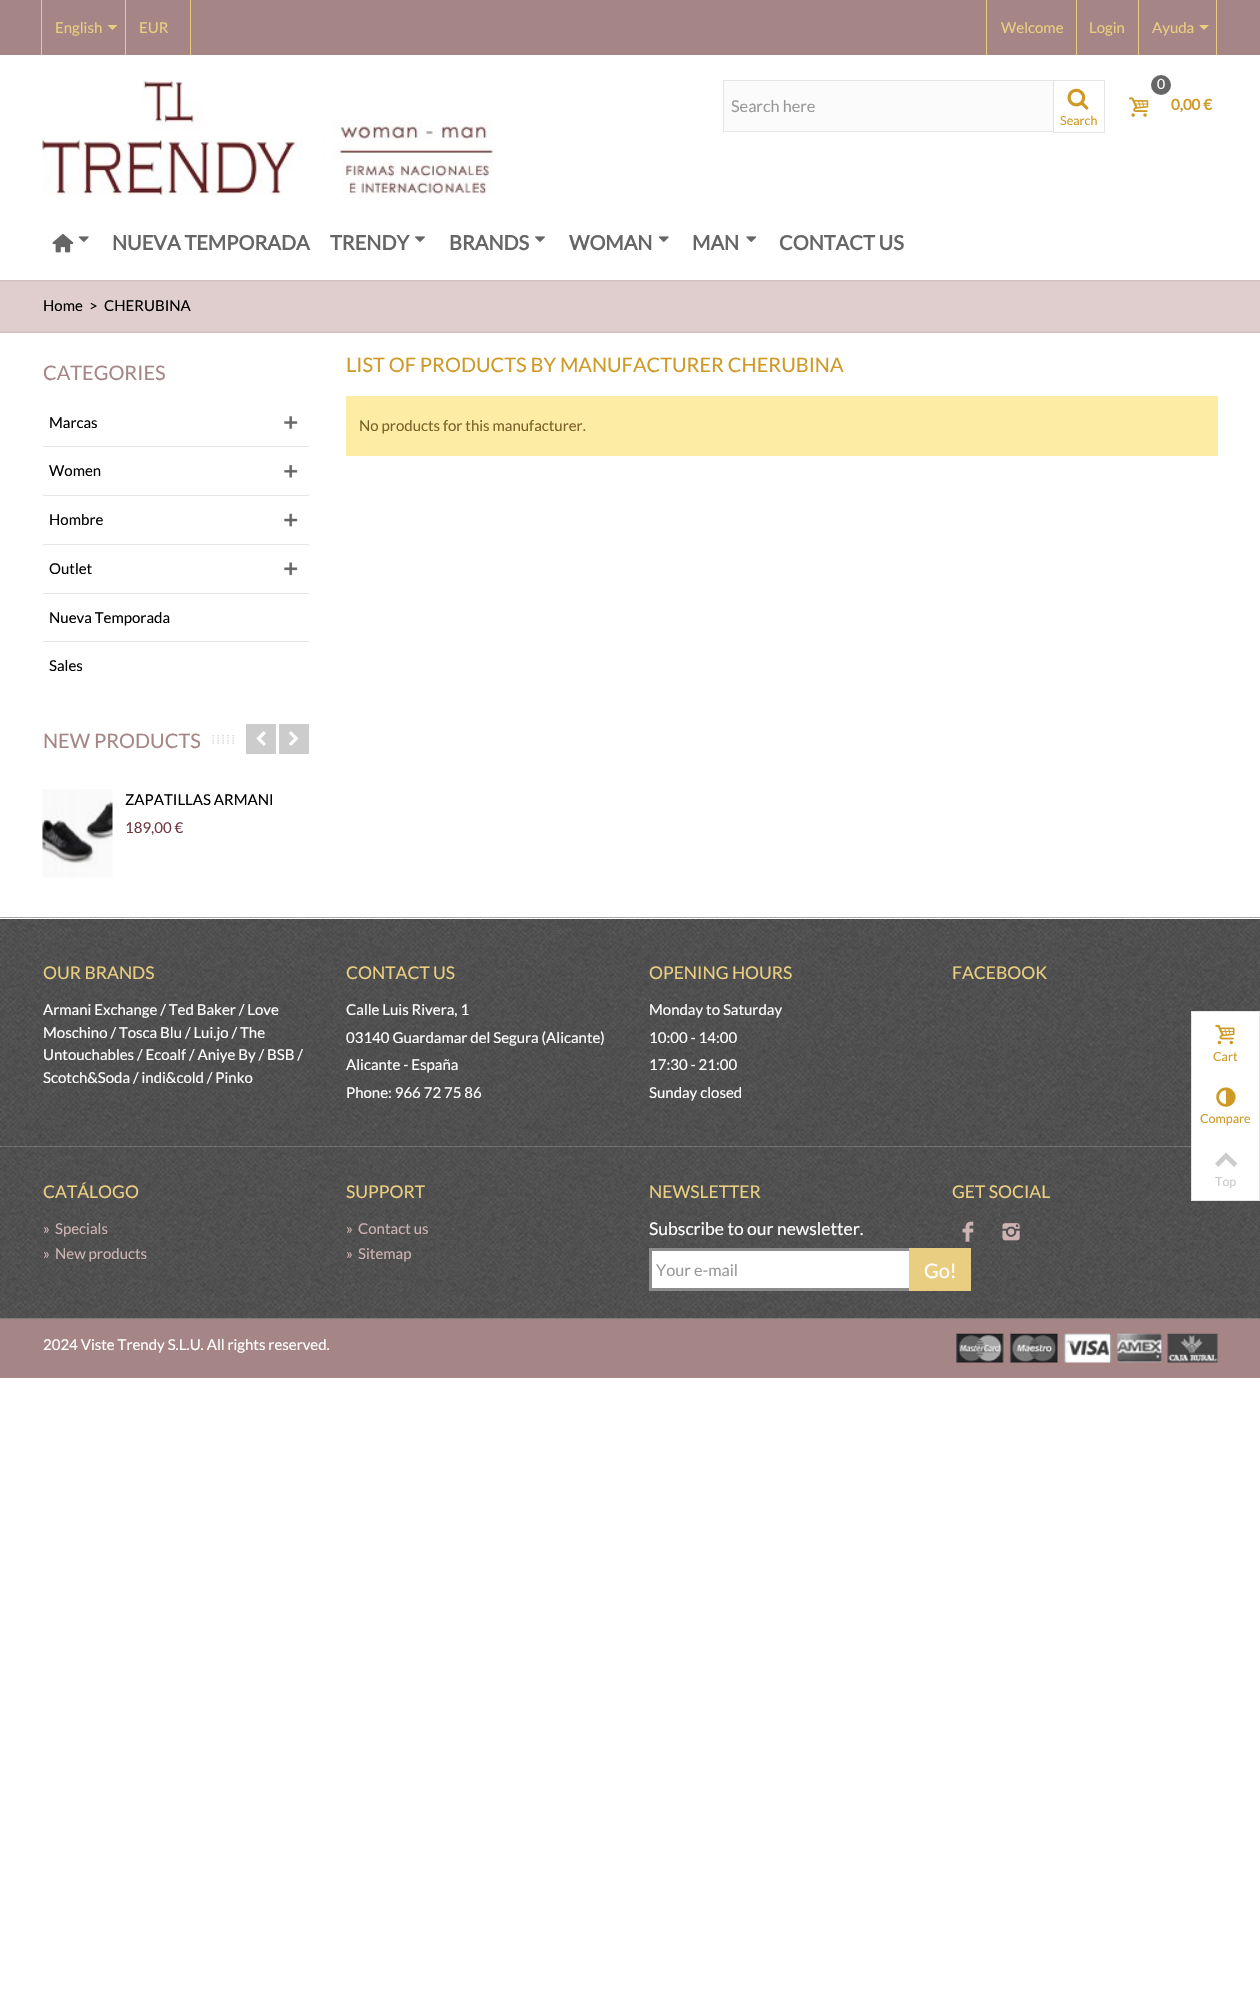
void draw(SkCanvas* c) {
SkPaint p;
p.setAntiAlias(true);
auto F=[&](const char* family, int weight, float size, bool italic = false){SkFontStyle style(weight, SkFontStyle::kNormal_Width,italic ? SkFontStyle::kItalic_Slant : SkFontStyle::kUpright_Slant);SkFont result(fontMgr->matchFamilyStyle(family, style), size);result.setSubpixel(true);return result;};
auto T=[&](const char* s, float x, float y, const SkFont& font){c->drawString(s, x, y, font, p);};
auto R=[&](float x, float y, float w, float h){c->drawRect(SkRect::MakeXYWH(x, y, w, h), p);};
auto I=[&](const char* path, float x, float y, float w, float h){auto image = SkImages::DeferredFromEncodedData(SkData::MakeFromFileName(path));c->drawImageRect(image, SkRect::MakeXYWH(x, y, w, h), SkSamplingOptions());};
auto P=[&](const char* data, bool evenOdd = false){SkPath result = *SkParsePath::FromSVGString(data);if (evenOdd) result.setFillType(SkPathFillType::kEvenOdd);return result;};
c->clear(0xffffffff);
p.setColor(0xffa58585);
R(0,0,1260,55);
p.setColor(0xffe9ce81);
R(125,0,1,55);
R(41,0,1,55);
auto f1 = F("Lato",400,15);
T("English",55,33,f1);
c->drawPath(P("M107.5 25h10l-5 5z"),p);
R(190,0,1,55);
T("EUR",139,33,f1);
R(1076,0,1,55);
R(986,0,1,55);
T("Welcome",1001,33,f1);
R(1138,0,1,55);
T("Login",1089,33,f1);
R(1216,0,1,55);
T("Ayuda",1152,33,f1);
c->drawPath(P("M1199 25h10l-5 5z"),p);
I("1.png",42,80,451,115);
p.setColor(0xfffbfbfb);
R(724,81,329,50);
p.setColor(0xffe5e5e5);
R(723,80,330,1);
R(723,131,330,1);
R(723,80,1,53);
auto f2 = F("Lato",400,16.25);
p.setColor(0xff999999);
T("Search here",731,112,f2);
p.setStroke(true);
p.setStrokeWidth(1);
p.setColor(0xffe5e5e5);
c->drawRect(SkRect::MakeXYWH(1053.5,80.5,51,52),p);
I("2.png",1067,88,22,22);
auto f3 = F("Lato",400,12.5);
p.setStroke(false);
p.setColor(0xffcf9926);
T("Search",1060,125,f3);
p.setColor(0xff666666);
c->drawCircle(1161,85,10,p);
auto f4 = F("Lato",400,14);
p.setColor(0xffffffff);
T("0",1157,89,f4);
I("3.png",1129,97,20,20);
auto f5 = F("Lato",700,15);
p.setColor(0xffcf9926);
T("0,00 €",1171,110,f5);
I("4.png",52,233,22,20);
I("5.png",78,236,11,6);
auto f6 = F("Lato",700,20);
p.setColor(0xff666666);
T("NUEVA TEMPORADA",112,250,f6);
T("TRENDY",330,250,f6);
I("6.png",415,236,10,6);
T("BRANDS",449,250,f6);
I("6.png",535,236,10,6);
T("WOMAN",569,250,f6);
I("5.png",658,236,11,6);
T("MAN",692,250,f6);
I("7.png",746,236,11,6);
T("CONTACT US",779,250,f6);
{
const SkColor colors[] = {0xffd0bebe,0xffe0cece,0xffe0cece,0xffd0bebe};
const float stops[] = {0,.05,.95,1};
const SkPoint ends[] = {{630,280}, {630,333}};
p.setShader(SkGradientShader::MakeLinear(ends, colors, stops, 4, SkTileMode::kClamp));
p.setAlpha(255);
}
R(0,280,1260,53);
p.setShader(nullptr);
p.setColor(0xff000000);
T("Home",43,311,f1);
T(">",89,311,f1);
T("CHERUBINA",104,311,f1);
auto f7 = F("Lato",400,20);
p.setColor(0xffa58585);
T("CATEGORIES",43,380,f7);
p.setColor(0xffe5e5e5);
R(43,446,266,1);
p.setColor(0xff000000);
T("Marcas",49,428,f1);
I("8.png",284,416,14,13);
p.setColor(0xffe5e5e5);
R(43,495,266,1);
p.setColor(0xff000000);
T("Women",49,476,f1);
I("9.png",284,464,14,14);
p.setColor(0xffe5e5e5);
R(43,544,266,1);
p.setColor(0xff000000);
T("Hombre",49,525,f1);
I("10.png",284,513,14,14);
p.setColor(0xffe5e5e5);
R(43,593,266,1);
p.setColor(0xff000000);
T("Outlet",49,574,f1);
I("11.png",284,562,14,14);
p.setColor(0xffe5e5e5);
R(43,641,266,1);
p.setColor(0xff000000);
T("Nueva Temporada",49,623,f1);
T("Sales",49,671,f1);
I("12.png",42,735,192,9);
p.setColor(0xffffffff);
R(43,735,166,9);
p.setColor(0xffa58585);
T("NEW PRODUCTS",43,748,f7);
p.setColor(0xffcccccc);
R(246,724,30,30);
I("13.png",256,731,10,15);
R(279,724,30,30);
I("14.png",289,731,10,15);
I("15.png",42,789,71,89);
p.setColor(0xff000000);
T("ZAPATILLAS ARMANI",125,805,f1);
p.setColor(0xff723a41);
T("189,00 €",125,833,f1);
p.setColor(0xffcf9926);
T("LIST OF PRODUCTS BY MANUFACTURER CHERUBINA",346,372,f7);
p.setColor(0xfffdeda4);
R(346,396,872,60);
p.setColor(0xff7c622a);
T("No products for this manufacturer.",359,431,f1);
I("16.png",0,917,1260,230);
p.setColor(0xffffffff);
R(0,918,1260,1);
auto f8 = F("Lato",400,17.5);
p.setColor(0xffe9ce81);
T("OUR BRANDS",43,979,f8);
p.setColor(0xffffffff);
T("Armani Exchange / Ted Baker / Love",43,1015,f1);
T("Moschino / Tosca Blu / Lui.jo / The",43,1038,f1);
T("Untouchables / Ecoalf / Aniye By / BSB /",43,1060,f1);
T("Scotch&Soda / indi&cold / Pinko",43,1083,f1);
p.setColor(0xffe9ce81);
T("CONTACT US",346,979,f8);
p.setColor(0xffffffff);
T("Calle Luis Rivera, 1",346,1015,f1);
T("03140 Guardamar del Segura (Alicante)",346,1043,f1);
T("Alicante - España",346,1070,f1);
T("Phone: 966 72 75 86",346,1098,f1);
p.setColor(0xffe9ce81);
T("OPENING HOURS",649,979,f8);
p.setColor(0xffffffff);
T("Monday to Saturday",649,1015,f1);
T("10:00 - 14:00",649,1043,f1);
T("17:30 - 21:00",649,1070,f1);
T("Sunday closed",649,1098,f1);
p.setColor(0xffe9ce81);
T("FACEBOOK",952,979,f8);
I("17.png",0,1146,1260,173);
T("CATÁLOGO",43,1198,f8);
p.setColor(0xffceb3b3);
T("»",43,1234,f1);
T("Specials",55,1234,f1);
T("»",43,1259,f1);
T("New products",55,1259,f1);
p.setColor(0xffe9ce81);
T("SUPPORT",346,1198,f8);
p.setColor(0xffceb3b3);
T("»",346,1234,f1);
T("Contact us",358,1234,f1);
T("»",346,1259,f1);
T("Sitemap",358,1259,f1);
p.setColor(0xffe9ce81);
T("NEWSLETTER",649,1198,f8);
p.setColor(0xffffffff);
T("Subscribe to our newsletter.",649,1235,f8);
R(652,1251,257,37);
p.setStroke(true);
p.setStrokeWidth(3);
p.setColor(0xff8c8c8c);
c->drawRect(SkRect::MakeXYWH(650.5,1249.5,319,40),p);
p.setStroke(false);
p.setColor(0xff999999);
T("Your e-mail",656,1276,f2);
p.setColor(0xffe9ce81);
R(909,1248,62,43);
p.setColor(0xffffffff);
T("Go!",924,1278,f7);
p.setColor(0xffe9ce81);
T("GET SOCIAL",952,1198,f8);
I("18.png",962,1221,12,21);
I("19.png",1002,1223,18,18);
p.setColor(0xffa58585);
R(0,1319,1260,59);
p.setColor(0xffffffff);
T("2024 Viste Trendy S.L.U. All rights reserved.",43,1350,f1);
I("20.png",956,1333,262,30);
R(1191,1012,68,188);
p.setColor(0xffe5e5e5);
R(1191,1011,69,1);
R(1259,1011,1,190);
R(1191,1200,69,1);
R(1191,1013,1,187);
I("21.png",1215,1024,20,21);
p.setColor(0xffcf9926);
T("Cart",1213,1061,f3);
I("22.png",1216,1087,20,20);
T("Compare",1200,1123,f3);
p.setColor(0xffcccccc);
c->drawPath(P("M1215 1163.5l11-11l11.5 11l-3.5 3.5l-8-8l-7.5 8z"),p);
T("Top",1215,1186,f3);
}
